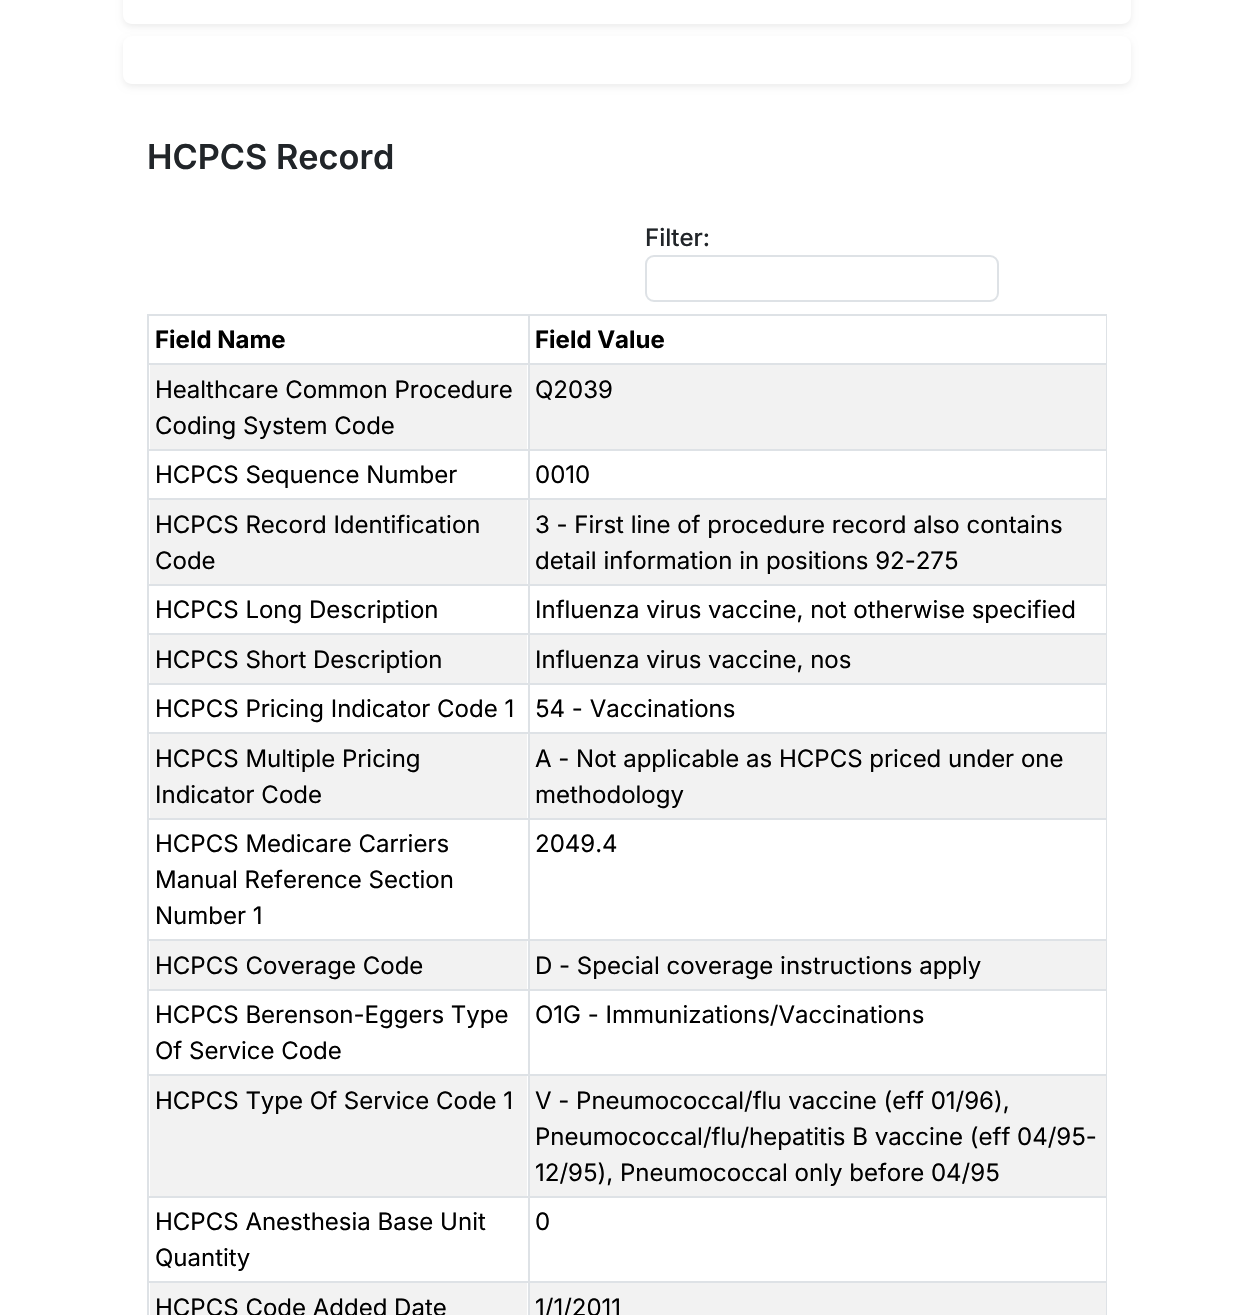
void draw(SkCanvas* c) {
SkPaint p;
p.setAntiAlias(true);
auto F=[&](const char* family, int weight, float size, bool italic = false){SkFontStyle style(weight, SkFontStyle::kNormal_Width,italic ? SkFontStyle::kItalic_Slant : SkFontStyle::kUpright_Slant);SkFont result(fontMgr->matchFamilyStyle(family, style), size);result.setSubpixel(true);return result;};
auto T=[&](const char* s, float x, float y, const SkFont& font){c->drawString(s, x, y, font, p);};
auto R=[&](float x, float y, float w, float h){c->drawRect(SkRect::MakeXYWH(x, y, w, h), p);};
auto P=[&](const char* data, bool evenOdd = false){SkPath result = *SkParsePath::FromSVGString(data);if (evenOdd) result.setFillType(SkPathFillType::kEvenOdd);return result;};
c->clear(0xffffffff);
c->save();
c->clipPath(P("M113 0h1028v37h-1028zm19-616h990c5 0 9 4 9 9v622c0 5-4 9-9 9h-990c-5 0-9-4-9-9v-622c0-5 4-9 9-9z",true),true);
p.setColor(0x12000000);
p.setMaskFilter(SkMaskFilter::MakeBlur(kNormal_SkBlurStyle, 3));
c->drawRoundRect(SkRect::MakeXYWH(123,-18,1008,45),9,9,p);
p.setMaskFilter(nullptr);
c->restore();
c->save();
c->clipPath(P("M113 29h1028v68h-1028zm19 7h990c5 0 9 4 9 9v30c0 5-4 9-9 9h-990c-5 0-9-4-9-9v-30c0-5 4-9 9-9z",true),true);
p.setMaskFilter(SkMaskFilter::MakeBlur(kNormal_SkBlurStyle, 3));
c->drawRoundRect(SkRect::MakeXYWH(123,39,1008,48),9,9,p);
p.setMaskFilter(nullptr);
c->restore();
auto f1 = F("Inter",600,34.25);
p.setColor(0xff212529);
T("HCPCS Record",147,169,f1);
auto f2 = F("Inter",500,24);
T("Filter:",645,246,f2);
p.setStroke(true);
p.setStrokeWidth(2);
p.setColor(0xffdee2e6);
c->drawRoundRect(SkRect::MakeXYWH(646,256,352,45),8,8,p);
p.setStroke(false);
R(147,314,960,2);
auto f3 = F("Inter",700,24);
p.setColor(0xff000000);
T("Field Name",155,348,f3);
T("Field Value",535,348,f3);
p.setColor(0xffdee2e6);
R(147,363,960,2);
p.setColor(0xfff2f2f2);
R(150,365,377,84);
auto f4 = F("Inter",400,24);
p.setColor(0xff000000);
T("Healthcare Common Procedure",155,398,f4);
T("Coding System Code",155,434,f4);
p.setColor(0xfff2f2f2);
R(530,365,576,84);
p.setColor(0xff000000);
T("Q2039",535,398,f4);
p.setColor(0xffdee2e6);
R(147,449,960,2);
p.setColor(0xff000000);
T("HCPCS Sequence Number",155,483,f4);
T("0010",535,483,f4);
p.setColor(0xffdee2e6);
R(147,498,960,2);
p.setColor(0xfff2f2f2);
R(150,500,377,84);
p.setColor(0xff000000);
T("HCPCS Record Identification",155,533,f4);
T("Code",155,569,f4);
p.setColor(0xfff2f2f2);
R(530,500,576,84);
p.setColor(0xff000000);
T("3 - First line of procedure record also contains",535,533,f4);
T("detail information in positions 92-275",535,569,f4);
p.setColor(0xffdee2e6);
R(147,584,960,2);
p.setColor(0xff000000);
T("HCPCS Long Description",155,618,f4);
T("Influenza virus vaccine, not otherwise specified",535,618,f4);
p.setColor(0xffdee2e6);
R(147,633,960,2);
p.setColor(0xfff2f2f2);
R(150,635,377,48);
p.setColor(0xff000000);
T("HCPCS Short Description",155,668,f4);
p.setColor(0xfff2f2f2);
R(530,635,576,48);
p.setColor(0xff000000);
T("Influenza virus vaccine, nos",535,668,f4);
p.setColor(0xffdee2e6);
R(147,683,960,2);
p.setColor(0xff000000);
T("HCPCS Pricing Indicator Code 1",155,717,f4);
T("54 - Vaccinations",535,717,f4);
p.setColor(0xffdee2e6);
R(147,732,960,2);
p.setColor(0xfff2f2f2);
R(150,734,377,84);
p.setColor(0xff000000);
T("HCPCS Multiple Pricing",155,767,f4);
T("Indicator Code",155,803,f4);
p.setColor(0xfff2f2f2);
R(530,734,576,84);
p.setColor(0xff000000);
T("A - Not applicable as HCPCS priced under one",535,767,f4);
T("methodology",535,803,f4);
p.setColor(0xffdee2e6);
R(147,818,960,2);
p.setColor(0xff000000);
T("HCPCS Medicare Carriers",155,852,f4);
T("Manual Reference Section",155,888,f4);
T("Number 1",155,924,f4);
T("2049.4",535,852,f4);
p.setColor(0xffdee2e6);
R(147,939,960,2);
p.setColor(0xfff2f2f2);
R(150,941,377,48);
p.setColor(0xff000000);
T("HCPCS Coverage Code",155,974,f4);
p.setColor(0xfff2f2f2);
R(530,941,576,48);
p.setColor(0xff000000);
T("D - Special coverage instructions apply",535,974,f4);
p.setColor(0xffdee2e6);
R(147,989,960,2);
p.setColor(0xff000000);
T("HCPCS Berenson-Eggers Type",155,1023,f4);
T("Of Service Code",155,1059,f4);
T("O1G - Immunizations/Vaccinations",535,1023,f4);
p.setColor(0xffdee2e6);
R(147,1074,960,2);
p.setColor(0xfff2f2f2);
R(150,1076,377,120);
p.setColor(0xff000000);
T("HCPCS Type Of Service Code 1",155,1109,f4);
p.setColor(0xfff2f2f2);
R(530,1076,576,120);
p.setColor(0xff000000);
T("V - Pneumococcal/flu vaccine (eff 01/96),",535,1109,f4);
T("Pneumococcal/flu/hepatitis B vaccine (eff 04/95-",535,1145,f4);
T("12/95), Pneumococcal only before 04/95",535,1181,f4);
p.setColor(0xffdee2e6);
R(147,1196,960,2);
p.setColor(0xff000000);
T("HCPCS Anesthesia Base Unit",155,1230,f4);
T("Quantity",155,1266,f4);
T("0",535,1230,f4);
p.setColor(0xffdee2e6);
R(147,1281,960,2);
p.setColor(0xfff2f2f2);
R(150,1283,377,32);
p.setColor(0xffdee2e6);
R(147,314,2,1001);
p.setColor(0xff000000);
T("HCPCS Code Added Date",155,1316,f4);
p.setColor(0xfff2f2f2);
R(530,1283,576,32);
p.setColor(0xffdee2e6);
R(1106,314,1,1001);
R(528,314,2,1001);
p.setColor(0xff000000);
T("1/1/2011",535,1316,f4);
}
